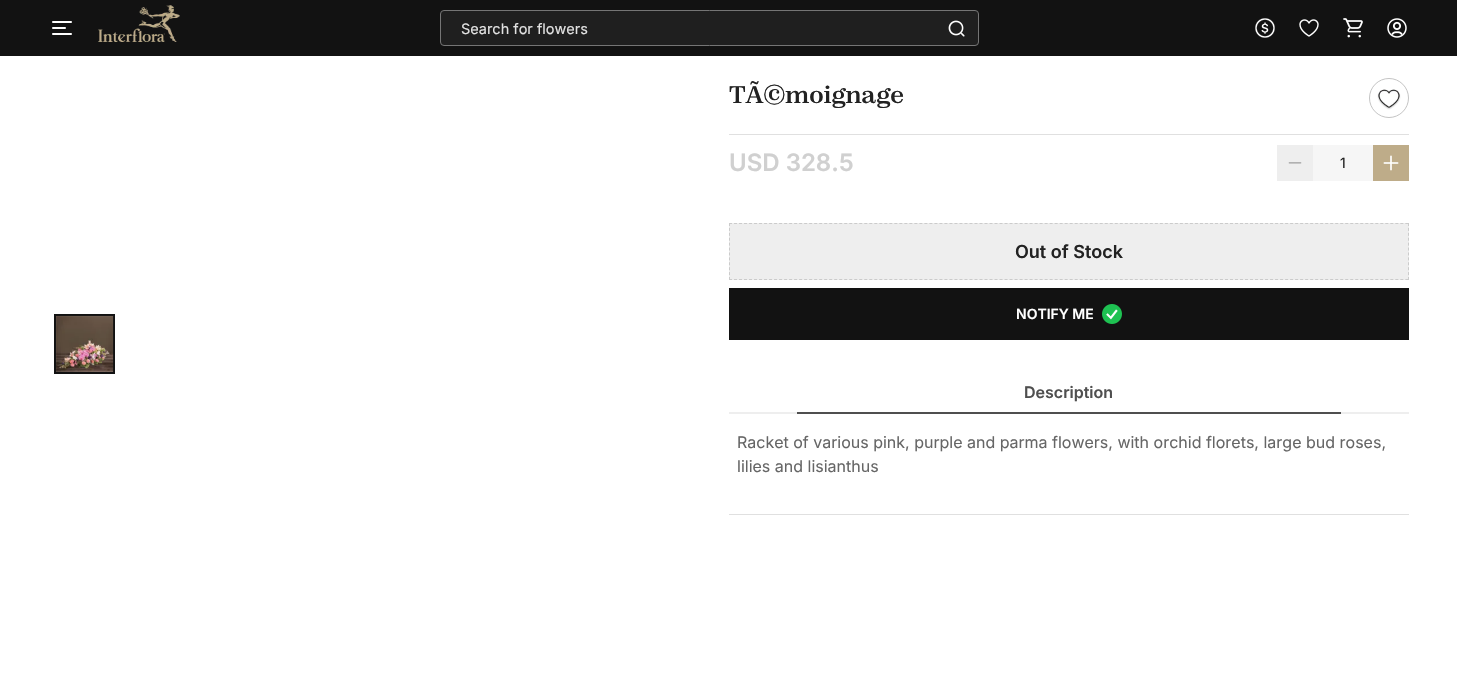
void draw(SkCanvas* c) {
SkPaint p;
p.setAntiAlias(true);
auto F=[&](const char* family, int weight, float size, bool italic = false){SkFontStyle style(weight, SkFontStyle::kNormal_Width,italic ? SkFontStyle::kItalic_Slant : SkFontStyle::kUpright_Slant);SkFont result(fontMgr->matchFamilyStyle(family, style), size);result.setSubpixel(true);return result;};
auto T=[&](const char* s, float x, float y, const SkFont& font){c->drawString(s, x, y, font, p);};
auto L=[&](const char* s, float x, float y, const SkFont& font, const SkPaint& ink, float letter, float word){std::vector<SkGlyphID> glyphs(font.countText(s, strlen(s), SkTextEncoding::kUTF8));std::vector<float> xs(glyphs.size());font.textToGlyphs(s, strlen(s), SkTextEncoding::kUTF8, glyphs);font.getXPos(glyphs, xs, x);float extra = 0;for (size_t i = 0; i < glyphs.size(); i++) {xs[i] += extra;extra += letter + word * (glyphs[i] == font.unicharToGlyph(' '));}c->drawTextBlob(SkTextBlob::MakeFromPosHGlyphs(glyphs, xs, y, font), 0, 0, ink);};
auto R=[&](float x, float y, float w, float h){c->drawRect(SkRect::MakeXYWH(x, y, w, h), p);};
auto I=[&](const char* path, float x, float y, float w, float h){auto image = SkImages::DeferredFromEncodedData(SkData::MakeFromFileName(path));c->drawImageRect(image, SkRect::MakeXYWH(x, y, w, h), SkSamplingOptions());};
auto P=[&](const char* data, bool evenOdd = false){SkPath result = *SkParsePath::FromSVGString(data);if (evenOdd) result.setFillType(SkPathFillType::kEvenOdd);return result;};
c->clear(0xffffffff);
p.setColor(0xff121212);
R(0,0,1457,56);
I("1.png",52,21,20,14);
I("2.png",98,5,82,37);
p.setColor(0xff1f1f1f);
c->drawRoundRect(SkRect::MakeXYWH(440.5,10.5,538,35),3.5,3.5,p);
p.setStroke(true);
p.setStrokeWidth(1);
p.setColor(0xff757575);
c->drawRoundRect(SkRect::MakeXYWH(440.5,10.5,538,35),3.5,3.5,p);
auto f1 = F("Inter",400,14.5);
p.setStroke(false);
p.setColor(0xffe2e2e2);
T("Search for flowers",461,34,f1);
I("3.png",948,20,17,17);
I("4.png",1255,18,20,20);
I("5.png",1299,19,20,18);
I("6.png",1343,18,20,20);
I("7.png",1387,18,20,20);
p.setStroke(true);
p.setStrokeWidth(2);
p.setColor(0xff121212);
c->drawRect(SkRect::MakeXYWH(55,315,59,58),p);
I("8.png",56,315,58,57);
auto f2 = F("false",500,24);
p.setStroke(false);
p.setColor(0xff222222);
L("TÃ©moignage",729,103,f2,p,-.4,0);
I("9.png",1377,89,24,21);
p.setStroke(true);
p.setStrokeWidth(1);
p.setColor(0xffc4c4c4);
c->drawCircle(1389,98,19.5,p);
p.setStroke(false);
p.setColor(0xffe0e0e0);
R(729,134,680,1);
auto f3 = F("Inter",600,24);
p.setColor(0xffd0d0d0);
T("USD 328.5",729,171,f3);
p.setColor(0xffeeeeee);
R(1277,145,36,36);
I("10.png",1288,162,14,2);
p.setColor(0xfff6f6f6);
R(1313,145,60,36);
auto f4 = F("Inter",400,14);
p.setColor(0xff222222);
T("1",1340,168,f4);
p.setColor(0xffbeac89);
R(1373,145,36,36);
I("11.png",1383,155,16,16);
p.setColor(0xffeeeeee);
R(729,223,680,57);
p.setStroke(true);
p.setColor(0xffcbcbcb);
p.setPathEffect(SkDashPathEffect::Make({{3,2.01f}}, 0));
c->drawPath(P("M729 223.5h680"),p);
p.setPathEffect(nullptr);
p.setPathEffect(SkDashPathEffect::Make({{3,1.91f}}, 0));
c->drawPath(P("M1408.5 223v57"),p);
p.setPathEffect(nullptr);
p.setPathEffect(SkDashPathEffect::Make({{3,2.01f}}, 0));
c->drawPath(P("M729 279.5h680"),p);
p.setPathEffect(nullptr);
p.setPathEffect(SkDashPathEffect::Make({{3,1.91f}}, 0));
c->drawPath(P("M729.5 223v57"),p);
p.setPathEffect(nullptr);
auto f5 = F("Inter",600,18);
p.setStroke(false);
p.setColor(0xff222222);
T("Out of Stock",1015,258,f5);
p.setColor(0xff121212);
R(729,288,680,52);
auto f6 = F("Inter",600,14);
p.setColor(0xffffffff);
T("NOTIFY ME",1016,319,f6);
I("12.png",1102,304,20,20);
p.setColor(0xffe0e0e0);
R(729,514,680,1);
auto f7 = F("Inter",600,16);
p.setColor(0xff4f4f4f);
T("Description",1024,398,f7);
p.setColor(0xffeeeeee);
R(729,412,680,2);
p.setColor(0xff4f4f4f);
R(797,412,544,2);
auto f8 = F("Inter",400,16);
p.setColor(0xff666666);
T("Racket of various pink, purple and parma flowers, with orchid florets, large bud roses,",737,448,f8);
T("lilies and lisianthus",737,472,f8);
}
